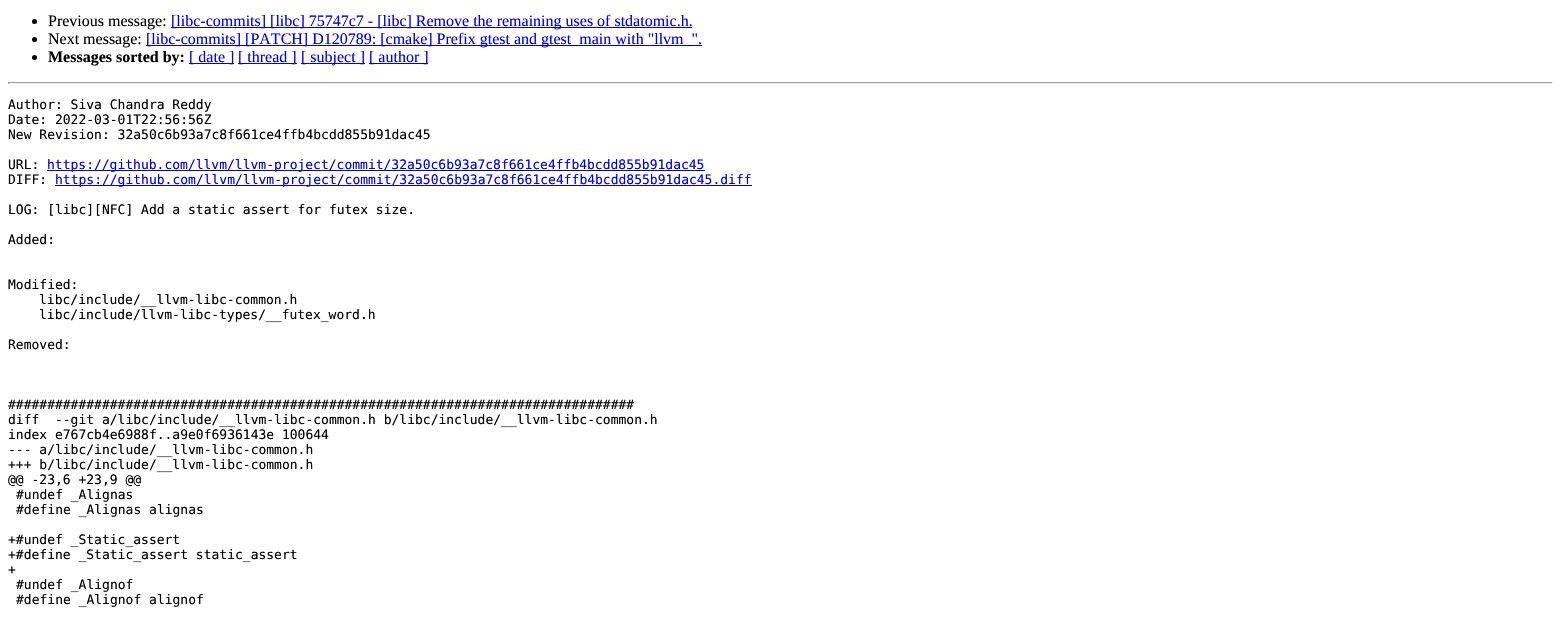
void draw(SkCanvas* c) {
SkPaint p;
p.setAntiAlias(true);
auto F=[&](const char* family, int weight, float size, bool italic = false){SkFontStyle style(weight, SkFontStyle::kNormal_Width,italic ? SkFontStyle::kItalic_Slant : SkFontStyle::kUpright_Slant);SkFont result(fontMgr->matchFamilyStyle(family, style), size);result.setSubpixel(true);return result;};
auto T=[&](const char* s, float x, float y, const SkFont& font){c->drawString(s, x, y, font, p);};
auto R=[&](float x, float y, float w, float h){c->drawRect(SkRect::MakeXYWH(x, y, w, h), p);};
c->clear(0xffffffff);
p.setColor(0xff000000);
c->drawCircle(34.5,21.5,2.5,p);
auto f1 = F("Liberation Serif",400,16);
T("Previous message:",48,26,f1);
p.setColor(0xff0000ee);
R(171,27,521,1);
T("[libc-commits] [libc] 75747c7 - [libc] Remove the remaining uses of stdatomic.h.",171,26,f1);
p.setColor(0xff000000);
c->drawCircle(34.5,39.5,2.5,p);
T("Next message:",48,44,f1);
p.setColor(0xff0000ee);
R(146,45,556,1);
T("[libc-commits] [PATCH] D120789: [cmake] Prefix gtest and gtest_main with \"llvm_\".",146,44,f1);
p.setColor(0xff000000);
c->drawCircle(34.5,57.5,2.5,p);
auto f2 = F("Liberation Serif",700,16);
T("Messages sorted by:",48,62,f2);
p.setColor(0xff0000ee);
R(189,63,45,1);
T("[ date ]",189,62,f1);
R(238,63,59,1);
T("[ thread ]",238,62,f1);
R(301,63,64,1);
T("[ subject ]",301,62,f1);
R(369,63,59,1);
T("[ author ]",369,62,f1);
p.setColor(0xff9f9f9f);
R(8,82,1545,1);
p.setColor(0xffeeeeee);
R(1552,82,1,2);
R(8,83,1545,1);
p.setColor(0xff9f9f9f);
R(8,82,1,2);
auto f3 = F("DejaVu Sans Mono",400,13);
p.setColor(0xff000000);
T("Author: Siva Chandra Reddy",8,109,f3);
T("Date: 2022-03-01T22:56:56Z",8,124,f3);
T("New Revision: 32a50c6b93a7c8f661ce4ffb4bcdd855b91dac45",8,139,f3);
T("URL:",8,169,f3);
p.setColor(0xff0000ee);
R(47,170,658,1);
T("https://github.com/llvm/llvm-project/commit/32a50c6b93a7c8f661ce4ffb4bcdd855b91dac45",47,169,f3);
p.setColor(0xff000000);
T("DIFF:",8,184,f3);
p.setColor(0xff0000ee);
R(55,185,697,1);
T("https://github.com/llvm/llvm-project/commit/32a50c6b93a7c8f661ce4ffb4bcdd855b91dac45.diff",55,184,f3);
p.setColor(0xff000000);
T("LOG: [libc][NFC] Add a static assert for futex size.",8,214,f3);
T("Added:",8,244,f3);
T("Modified:",8,289,f3);
T("libc/include/__llvm-libc-common.h",39,304,f3);
T("libc/include/llvm-libc-types/__futex_word.h",39,319,f3);
T("Removed:",8,349,f3);
T("################################################################################",8,409,f3);
T("diff  --git a/libc/include/__llvm-libc-common.h b/libc/include/__llvm-libc-common.h",8,424,f3);
T("index e767cb4e6988f..a9e0f6936143e 100644",8,439,f3);
T("--- a/libc/include/__llvm-libc-common.h",8,454,f3);
T("+++ b/libc/include/__llvm-libc-common.h",8,469,f3);
T("@@ -23,6 +23,9 @@",8,484,f3);
T("#undef _Alignas",16,499,f3);
T("#define _Alignas alignas",16,514,f3);
T("+#undef _Static_assert",8,544,f3);
T("+#define _Static_assert static_assert",8,559,f3);
T("+",8,574,f3);
T("#undef _Alignof",16,589,f3);
T("#define _Alignof alignof",16,604,f3);
}
